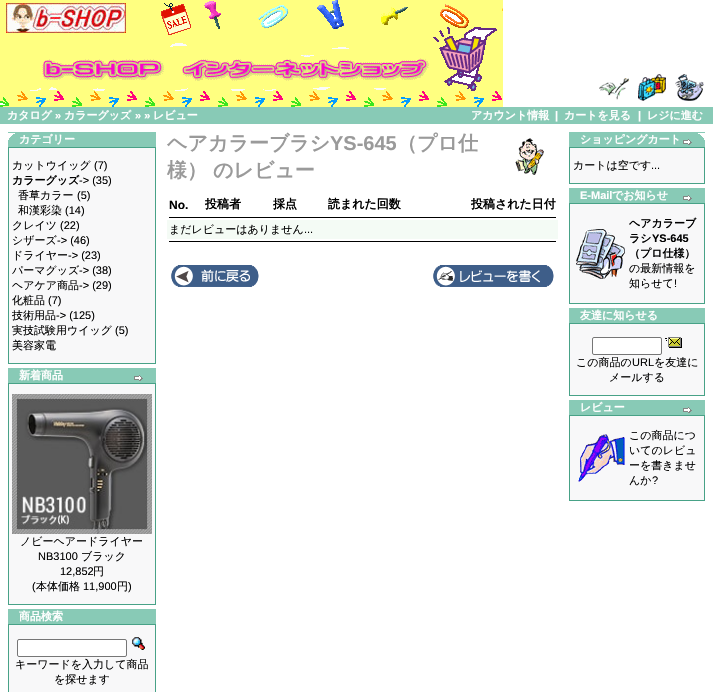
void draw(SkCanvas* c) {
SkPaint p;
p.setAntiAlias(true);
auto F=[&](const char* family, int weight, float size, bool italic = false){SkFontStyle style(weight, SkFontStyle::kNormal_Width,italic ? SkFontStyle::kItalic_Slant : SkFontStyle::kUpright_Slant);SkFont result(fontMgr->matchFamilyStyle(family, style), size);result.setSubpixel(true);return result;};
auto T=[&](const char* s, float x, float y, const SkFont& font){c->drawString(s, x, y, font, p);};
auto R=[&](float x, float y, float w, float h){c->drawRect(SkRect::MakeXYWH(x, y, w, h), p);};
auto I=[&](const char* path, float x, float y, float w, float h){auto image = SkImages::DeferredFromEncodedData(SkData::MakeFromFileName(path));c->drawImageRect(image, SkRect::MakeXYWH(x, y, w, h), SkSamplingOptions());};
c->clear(0xffffffff);
I("1.png",0,0,503,107);
I("2.png",599,78,30,22);
I("3.png",638,74,28,27);
I("4.png",675,74,29,27);
p.setColor(0xff88cab6);
R(0,107,713,17);
auto f1 = F("WenQuanYi Zen Hei",700,11);
p.setColor(0xffffffff);
T("カタログ",7,119,f1);
auto f2 = F("Liberation Sans",700,11);
T("»",55,119,f2);
T("カラーグッズ",64,119,f1);
T("» »",135,119,f2);
T("レビュー",153,119,f1);
T("アカウント情報",471,119,f1);
T("|",555,119,f2);
T("カートを見る",564,119,f1);
T("|",638,119,f2);
T("レジに進む",647,119,f1);
p.setColor(0xff88cab6);
R(8,132,148,15);
I("5.png",8,133,7,7);
p.setColor(0xffffffff);
T("カテゴリー",19,143,f1);
p.setColor(0xff48a287);
R(8,147,148,217);
p.setColor(0xfff8f8f9);
R(9,148,146,215);
auto f3 = F("WenQuanYi Zen Hei",500,11);
p.setColor(0xff000000);
T("カットウイッグ",12,169,f3);
auto f4 = F("Liberation Sans",400,11);
T("(7)",94,169,f4);
T("カラーグッズ",12,184,f1);
T("-> (35)",79,184,f4);
T("香草カラー",18,199,f3);
T("(5)",77,199,f4);
T("和漢彩染",18,214,f3);
T("(14)",65,214,f4);
T("クレイツ",12,229,f3);
T("(22)",60,229,f4);
T("シザーズ",12,244,f3);
T("-> (46)",57,244,f4);
T("ドライヤー",12,259,f3);
T("-> (23)",68,259,f4);
T("パーマグッズ",12,274,f3);
T("-> (38)",79,274,f4);
T("ヘアケア商品",12,289,f3);
T("-> (29)",79,289,f4);
T("化粧品",12,304,f3);
T("(7)",48,304,f4);
T("技術用品",12,319,f3);
T("-> (125)",56,319,f4);
T("実技試験用ウイッグ",12,334,f3);
T("(5)",115,334,f4);
T("美容家電",12,349,f3);
p.setColor(0xff88cab6);
R(8,368,148,15);
p.setColor(0xffffffff);
T("新着商品",19,379,f1);
I("6.png",134,375,9,6);
p.setColor(0xff48a287);
R(8,383,148,222);
p.setColor(0xfff8f8f9);
R(9,384,146,220);
I("7.png",12,394,140,140);
p.setColor(0xff000000);
T("ノビーヘアードライヤー",20,545,f3);
T("NB3100",38,560,f4);
T("ブラック",81,560,f3);
T("12,852",60,575,f4);
T("円",93,575,f3);
T("(",32,590,f4);
T("本体価格",36,590,f3);
T("11,900",83,590,f4);
T("円",117,590,f3);
T(")",128,590,f4);
p.setColor(0xff88cab6);
R(8,609,148,15);
p.setColor(0xffffffff);
T("商品検索",19,620,f1);
p.setColor(0xff48a287);
R(8,624,148,68);
p.setColor(0xfff8f8f9);
R(9,625,146,67);
p.setColor(0xffffffff);
c->drawRoundRect(SkRect::MakeXYWH(17.5,639.5,109,17),1.5,1.5,p);
p.setStroke(true);
p.setStrokeWidth(1);
p.setColor(0xff767676);
c->drawRoundRect(SkRect::MakeXYWH(17.5,639.5,109,17),1.5,1.5,p);
I("8.png",132,637,13,13);
p.setStroke(false);
p.setColor(0xff000000);
T("キーワードを入力して商品",15,668,f3);
T("を探せます",54,683,f3);
auto f5 = F("WenQuanYi Zen Hei",700,20);
p.setColor(0xff9a9a9a);
T("ヘアカラーブラシ",167,150,f5);
auto f6 = F("Liberation Sans",700,20);
T("YS-645",330,150,f6);
T("（プロ仕",397,150,f5);
T("様） のレビュー",167,177,f5);
I("9.png",515,138,29,37);
auto f7 = F("Liberation Sans",700,12);
p.setColor(0xff000000);
T("No.",169,209,f7);
auto f8 = F("WenQuanYi Zen Hei",700,12);
T("投稿者",205,208,f8);
T("採点",273,208,f8);
T("読まれた回数",328,208,f8);
T("投稿された日付",471,208,f8);
R(169,217,387,1);
p.setColor(0xfff4fbf5);
R(167,220,391,19);
p.setColor(0xff000000);
T("まだレビューはありません",169,233,f3);
T("...",304,233,f4);
R(169,241,387,1);
I("10.png",171,265,88,22);
I("11.png",433,265,121,22);
p.setColor(0xff88cab6);
R(569,132,136,15);
p.setColor(0xffffffff);
T("ショッピングカート",580,143,f1);
I("12.png",698,133,7,7);
I("6.png",683,139,9,6);
p.setColor(0xff48a287);
R(569,147,136,37);
p.setColor(0xfff8f8f9);
R(570,148,134,35);
p.setColor(0xff000000);
T("カートは空です",573,169,f3);
T("...",651,169,f4);
p.setColor(0xff88cab6);
R(569,188,136,15);
p.setColor(0xffffffff);
T("E-Mail",580,199,f2);
T("でお知らせ",612,199,f1);
I("6.png",683,195,9,6);
p.setColor(0xff48a287);
R(569,203,136,101);
p.setColor(0xfff8f8f9);
R(570,204,134,99);
I("13.png",576,229,49,50);
p.setColor(0xff000000);
T("ヘアカラーブ",629,227,f1);
T("ラシ",629,242,f1);
T("YS-645",652,242,f2);
T("（プロ仕様）",629,257,f1);
T("の最新情報を",629,272,f3);
T("知らせて",629,287,f3);
T("!",674,287,f4);
p.setColor(0xff88cab6);
R(569,308,136,15);
p.setColor(0xffffffff);
T("友達に知らせる",580,319,f1);
p.setColor(0xff48a287);
R(569,323,136,73);
p.setColor(0xfff8f8f9);
R(570,324,134,71);
p.setColor(0xffffffff);
c->drawRoundRect(SkRect::MakeXYWH(592.5,337.5,69,17),1.5,1.5,p);
p.setStroke(true);
p.setColor(0xff767676);
c->drawRoundRect(SkRect::MakeXYWH(592.5,337.5,69,17),1.5,1.5,p);
I("14.png",665,337,17,11);
p.setStroke(false);
p.setColor(0xff000000);
T("この商品の",576,366,f3);
T("URL",632,366,f4);
T("を友達に",654,366,f3);
T("メールする",609,381,f3);
p.setColor(0xff88cab6);
R(569,400,136,15);
p.setColor(0xffffffff);
T("レビュー",580,411,f1);
I("6.png",683,407,9,6);
p.setColor(0xff48a287);
R(569,415,136,86);
p.setColor(0xfff8f8f9);
R(570,416,134,84);
I("15.png",578,434,47,48);
p.setColor(0xff000000);
T("この商品につ",629,439,f3);
T("いてのレビュ",629,454,f3);
T("ーを書きませ",629,469,f3);
T("んか",629,484,f3);
T("?",652,484,f4);
}
